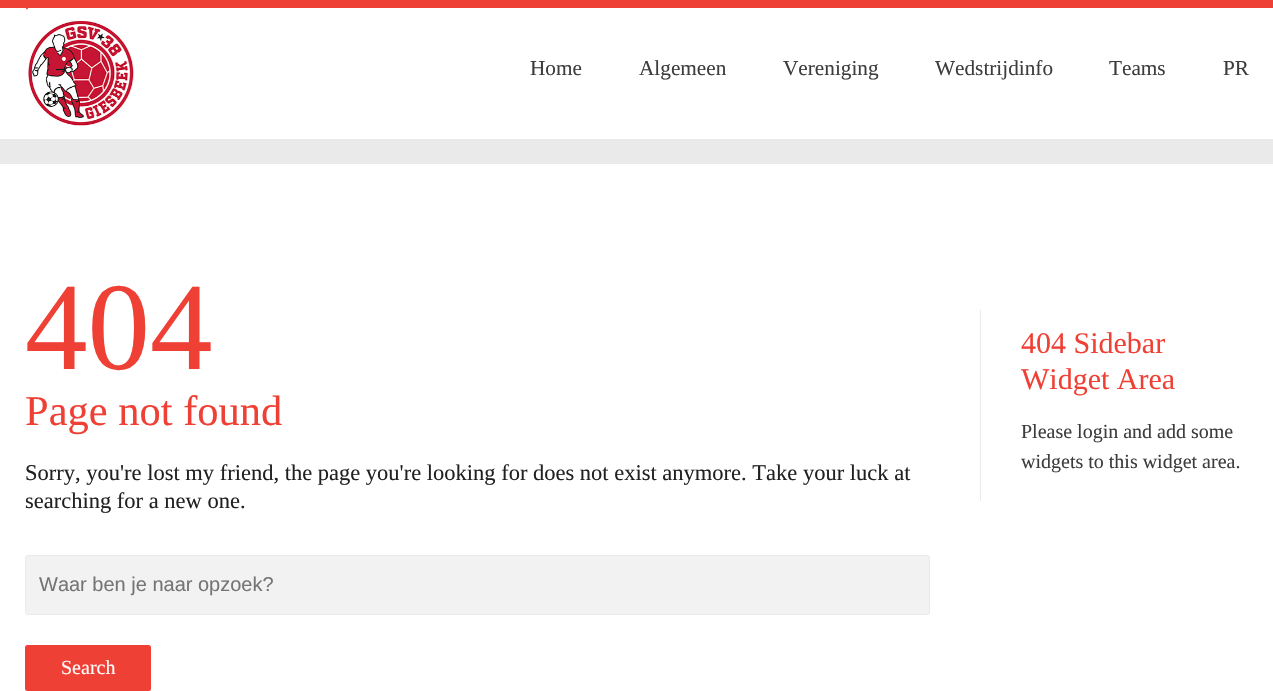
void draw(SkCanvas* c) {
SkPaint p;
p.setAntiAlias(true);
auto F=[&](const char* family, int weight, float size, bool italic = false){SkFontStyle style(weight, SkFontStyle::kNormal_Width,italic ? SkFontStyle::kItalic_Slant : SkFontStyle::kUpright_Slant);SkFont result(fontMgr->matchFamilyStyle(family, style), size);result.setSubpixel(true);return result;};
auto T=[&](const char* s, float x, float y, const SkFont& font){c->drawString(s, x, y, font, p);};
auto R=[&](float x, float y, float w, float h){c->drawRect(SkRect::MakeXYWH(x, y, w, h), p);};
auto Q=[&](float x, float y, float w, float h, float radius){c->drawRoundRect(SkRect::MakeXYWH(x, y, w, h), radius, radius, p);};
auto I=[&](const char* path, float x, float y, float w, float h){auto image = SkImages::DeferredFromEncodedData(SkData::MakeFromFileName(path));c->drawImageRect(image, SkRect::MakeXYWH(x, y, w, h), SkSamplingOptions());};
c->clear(0xffffffff);
p.setColor(0xffef4035);
R(0,0,1273,8);
auto f1 = F("Liberation Serif",400,16);
T(".",25,9,f1);
I("1.png",28,21,106,105);
auto f2 = F("Liberation Serif",400,21.25);
p.setColor(0xff3d3d3d);
T("Home",530,75,f2);
T("Algemeen",639,75,f2);
T("Vereniging",783,75,f2);
T("Wedstrijdinfo",935,75,f2);
T("Teams",1109,75,f2);
T("PR",1223,75,f2);
p.setColor(0xffeaeaea);
R(0,139,1273,25);
auto f3 = F("Liberation Serif",400,125);
p.setColor(0xffef4035);
T("404",25,369,f3);
auto f4 = F("Liberation Serif",400,42.5);
T("Page not found",25,425,f4);
auto f5 = F("Liberation Serif",400,22.5);
p.setColor(0xff212121);
T("Sorry, you're lost my friend, the page you're looking for does not exist anymore. Take your luck at",25,480,f5);
T("searching for a new one.",25,508,f5);
p.setColor(0xfff2f2f2);
c->drawRoundRect(SkRect::MakeXYWH(25.5,555.5,904,59),2,2,p);
p.setStroke(true);
p.setStrokeWidth(1);
p.setColor(0xffeaeaea);
c->drawRoundRect(SkRect::MakeXYWH(25.5,555.5,904,59),2,2,p);
auto f6 = F("Liberation Sans",400,20);
p.setStroke(false);
p.setColor(0xff757575);
T("Waar ben je naar opzoek?",39,591,f6);
p.setColor(0xffef4035);
Q(25,645,126,46,2.5);
auto f7 = F("Liberation Serif",400,20);
p.setColor(0xffffffff);
T("Search",61,674,f7);
p.setColor(0xffeaeaea);
R(980,310,1,191);
auto f8 = F("Liberation Serif",400,30);
p.setColor(0xffef4035);
T("404 Sidebar",1021,353,f8);
T("Widget Area",1021,389,f8);
p.setColor(0xff3d3d3d);
T("Please login and add some",1021,438,f7);
T("widgets to this widget area.",1021,468,f7);
}
